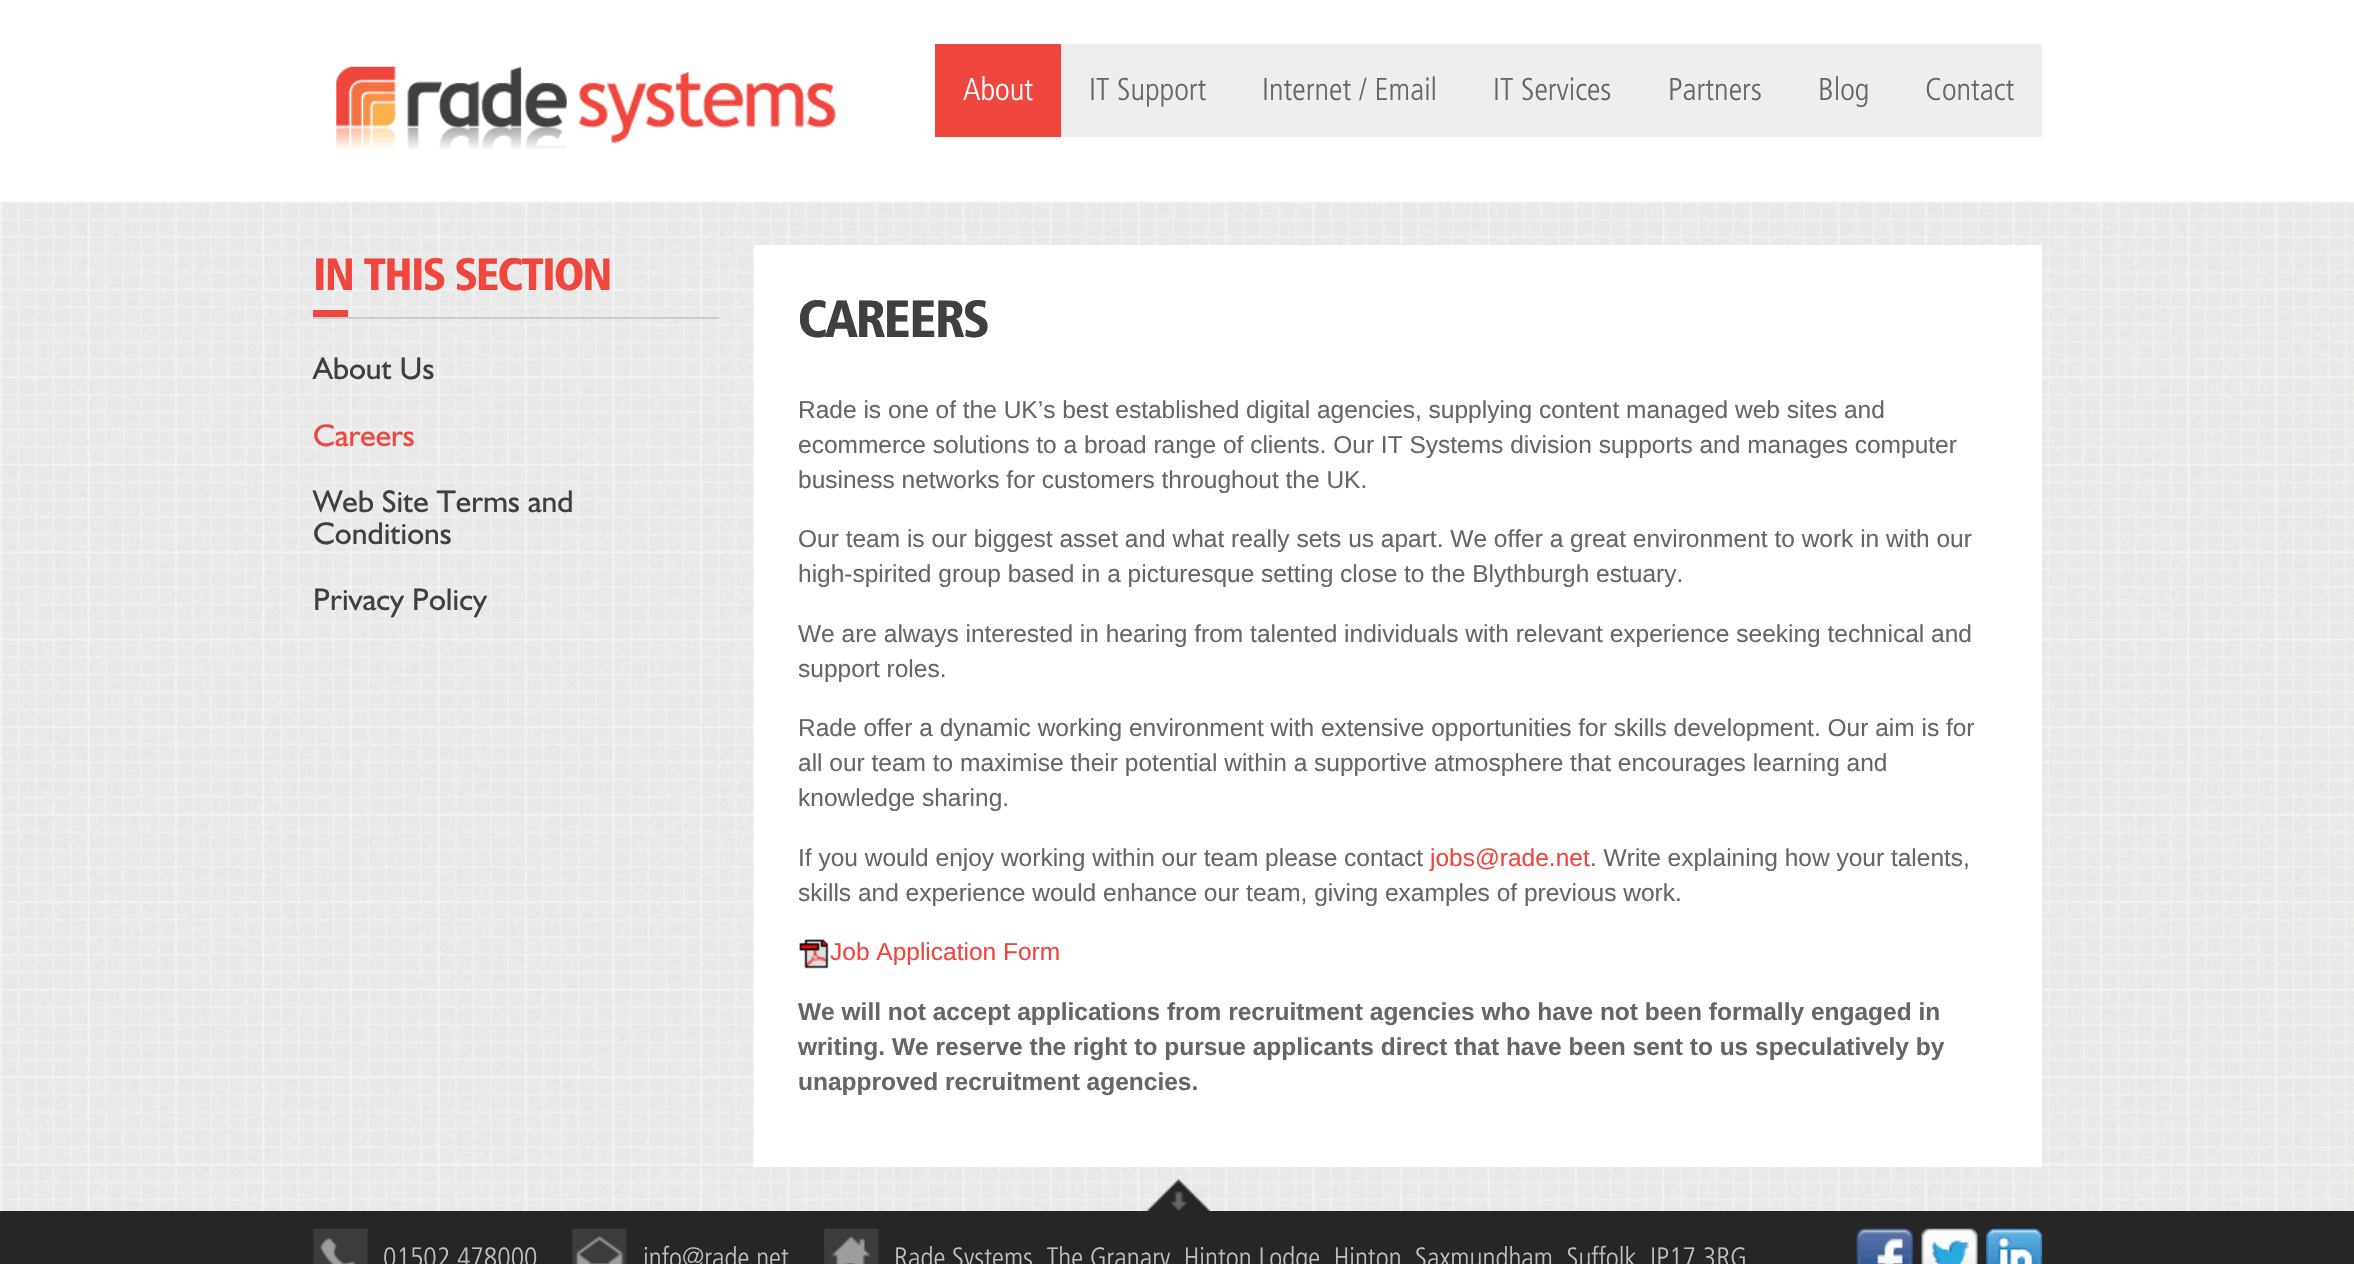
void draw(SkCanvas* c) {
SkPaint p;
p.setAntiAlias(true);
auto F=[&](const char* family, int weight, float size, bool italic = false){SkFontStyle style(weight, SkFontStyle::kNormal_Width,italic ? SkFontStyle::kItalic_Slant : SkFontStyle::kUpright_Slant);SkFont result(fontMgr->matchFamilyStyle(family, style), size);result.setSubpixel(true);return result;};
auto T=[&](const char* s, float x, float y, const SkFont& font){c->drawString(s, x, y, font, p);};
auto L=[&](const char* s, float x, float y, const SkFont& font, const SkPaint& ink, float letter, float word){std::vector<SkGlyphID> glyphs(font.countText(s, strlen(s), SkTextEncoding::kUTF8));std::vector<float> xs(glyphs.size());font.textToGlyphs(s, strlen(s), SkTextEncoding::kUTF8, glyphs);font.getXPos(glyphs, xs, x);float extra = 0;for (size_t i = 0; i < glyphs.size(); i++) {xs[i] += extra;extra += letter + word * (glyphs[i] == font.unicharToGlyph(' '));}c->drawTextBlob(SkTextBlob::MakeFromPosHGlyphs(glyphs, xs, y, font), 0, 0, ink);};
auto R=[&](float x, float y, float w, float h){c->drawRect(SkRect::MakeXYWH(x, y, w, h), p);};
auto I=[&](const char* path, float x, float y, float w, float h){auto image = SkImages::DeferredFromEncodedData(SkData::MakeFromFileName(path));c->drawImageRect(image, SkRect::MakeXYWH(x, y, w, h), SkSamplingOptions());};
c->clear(0xffffffff);
I("1.png",336,66,500,83);
p.setColor(0xffeeeeee);
R(1061,44,981,93);
p.setColor(0xffef463e);
R(935,44,126,93);
auto f1 = F("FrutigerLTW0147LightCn",300,31.5);
p.setColor(0xffffffff);
T("About",963,100,f1);
p.setColor(0xff666666);
T("IT Support",1089,100,f1);
T("Internet / Email",1262,100,f1);
T("IT Services",1493,100,f1);
T("Partners",1668,100,f1);
T("Blog",1818,100,f1);
T("Contact",1925,100,f1);
I("2.png",0,201,2354,1010);
auto f2 = F("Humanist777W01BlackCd",900,45.5);
p.setColor(0xffef463e);
L("IN THIS SECTION",313,290,f2,p,-1.75,0);
R(313,310,35,7);
p.setColor(0xffcccccc);
R(313,317,406,2);
auto f3 = F("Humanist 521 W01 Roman",400,31.5);
p.setColor(0xff404041);
T("About Us",313,379,f3);
p.setColor(0xffef463e);
T("Careers",313,446,f3);
p.setColor(0xff404041);
T("Web Site Terms and",313,512,f3);
T("Conditions",313,544,f3);
T("Privacy Policy",313,610,f3);
p.setColor(0xffffffff);
R(754,245,1288,922);
auto f4 = F("Humanist777W01BlackCd",900,52.5);
p.setColor(0xff404041);
L("CAREERS",798,337,f4,p,-1.75,0);
auto f5 = F("Liberation Sans",400,24.5);
p.setColor(0xff666666);
T("Rade is one of the UK’s best established digital agencies, supplying content managed web sites and",798,418,f5);
T("ecommerce solutions to a broad range of clients. Our IT Systems division supports and manages computer",798,453,f5);
T("business networks for customers throughout the UK.",798,488,f5);
T("Our team is our biggest asset and what really sets us apart. We offer a great environment to work in with our",798,547,f5);
T("high-spirited group based in a picturesque setting close to the Blythburgh estuary.",798,582,f5);
T("We are always interested in hearing from talented individuals with relevant experience seeking technical and",798,642,f5);
T("support roles.",798,677,f5);
T("Rade offer a dynamic working environment with extensive opportunities for skills development. Our aim is for",798,736,f5);
T("all our team to maximise their potential within a supportive atmosphere that encourages learning and",798,771,f5);
T("knowledge sharing.",798,806,f5);
T("If you would enjoy working within our team please contact",798,866,f5);
p.setColor(0xffef463e);
T("jobs@rade.net",1430,866,f5);
p.setColor(0xff666666);
T(". Write explaining how your talents,",1590,866,f5);
T("skills and experience would enhance our team, giving examples of previous work.",798,901,f5);
I("3.png",799,939,30,30);
p.setColor(0xffef463e);
T("Job Application Form",830,960,f5);
auto f6 = F("Liberation Sans",700,24.5);
p.setColor(0xff666666);
T("We will not accept applications from recruitment agencies who have not been formally engaged in",798,1020,f6);
T("writing. We reserve the right to pursue applicants direct that have been sent to us speculatively by",798,1055,f6);
T("unapproved recruitment agencies.",798,1090,f6);
I("4.png",1146,1179,65,32);
p.setColor(0xff262626);
R(0,1211,2354,53);
I("5.png",313,1228,55,36);
auto f7 = F("FrutigerLTW0147LightCn",300,28);
p.setColor(0xffbebebe);
T("01502 478000",383,1267,f7);
I("6.png",572,1228,55,36);
T("info@rade.net",643,1267,f7);
I("7.png",824,1228,55,36);
T("Rade Systems, The Granary, Hinton Lodge, Hinton, Saxmundham, Suffolk, IP17 3RG",894,1267,f7);
I("8.png",1856,1228,57,36);
I("9.png",1921,1228,57,36);
I("10.png",1986,1228,57,36);
}
